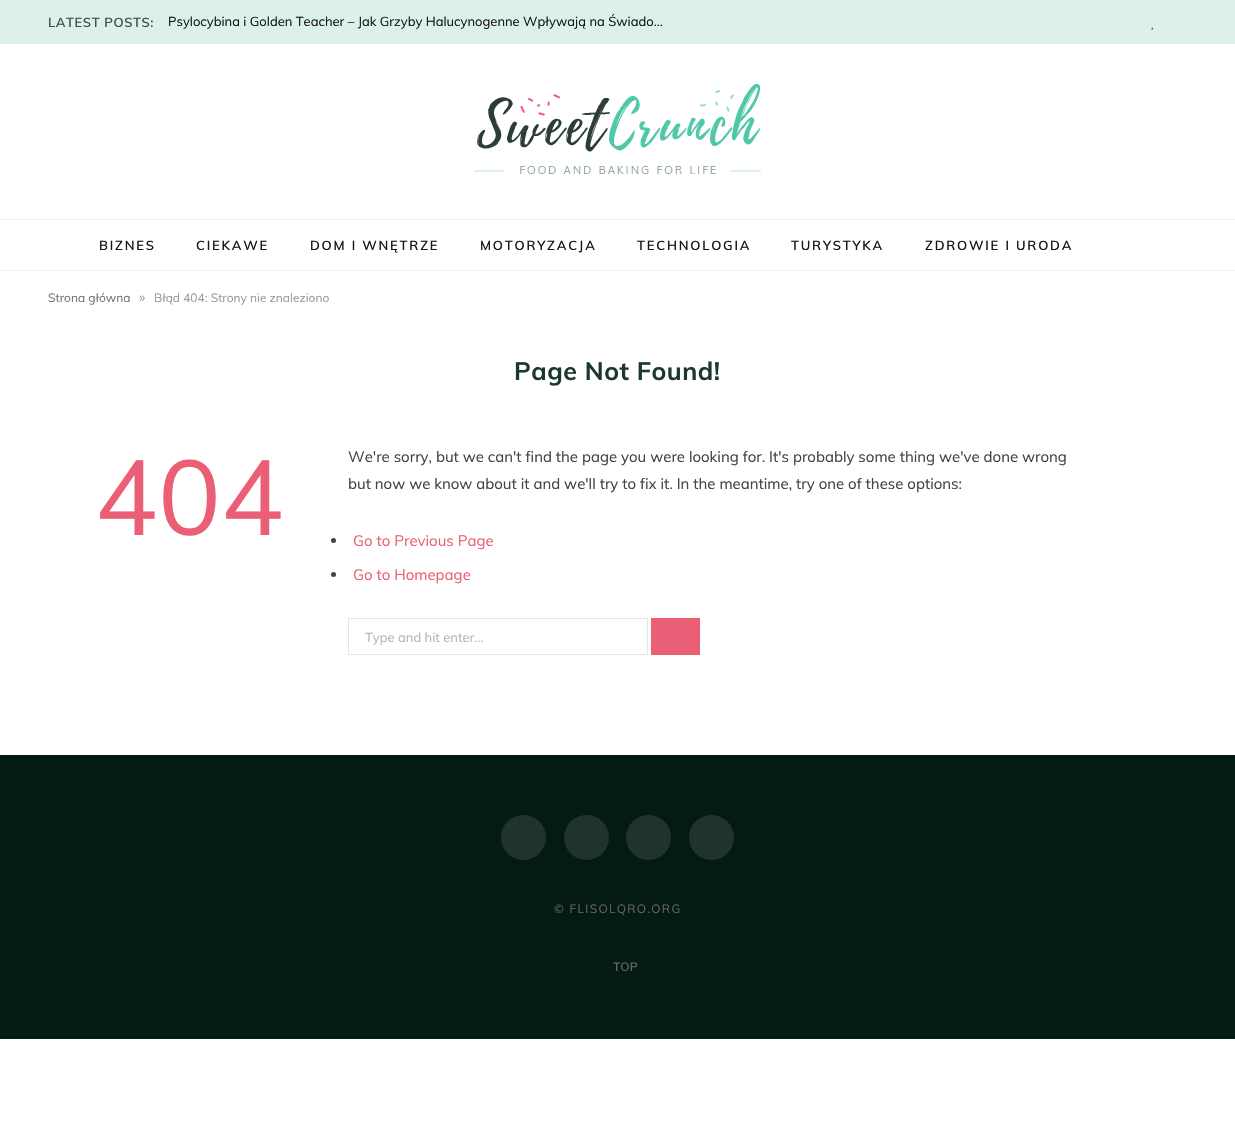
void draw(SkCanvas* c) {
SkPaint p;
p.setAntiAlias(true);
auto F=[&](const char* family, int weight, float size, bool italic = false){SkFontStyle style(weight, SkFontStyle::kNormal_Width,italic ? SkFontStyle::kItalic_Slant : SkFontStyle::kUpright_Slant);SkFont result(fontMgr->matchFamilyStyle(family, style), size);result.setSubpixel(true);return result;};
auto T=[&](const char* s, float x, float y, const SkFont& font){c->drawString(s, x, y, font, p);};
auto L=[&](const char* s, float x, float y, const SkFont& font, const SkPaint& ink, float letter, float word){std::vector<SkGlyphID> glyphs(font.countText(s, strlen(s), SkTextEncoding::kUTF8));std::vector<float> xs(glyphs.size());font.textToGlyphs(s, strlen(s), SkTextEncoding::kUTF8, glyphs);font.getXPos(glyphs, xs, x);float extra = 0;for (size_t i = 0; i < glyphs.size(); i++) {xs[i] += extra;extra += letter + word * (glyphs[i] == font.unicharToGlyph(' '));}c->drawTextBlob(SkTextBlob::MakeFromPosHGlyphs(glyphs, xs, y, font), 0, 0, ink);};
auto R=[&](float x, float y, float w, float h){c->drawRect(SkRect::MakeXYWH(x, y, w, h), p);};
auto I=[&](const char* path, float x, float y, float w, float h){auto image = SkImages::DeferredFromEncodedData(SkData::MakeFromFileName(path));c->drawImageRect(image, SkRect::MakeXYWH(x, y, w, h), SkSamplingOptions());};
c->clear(0xffffffff);
p.setColor(0xffddf1eb);
R(0,0,1235,44);
auto f1 = F("Muli",600,13);
p.setColor(0xff494949);
L("LATEST POSTS:",48,27,f1,p,.6,0);
auto f2 = F("Muli",400,13);
p.setColor(0xff161616);
T("Psylocybina i Golden Teacher – Jak Grzyby Halucynogenne Wpływają na Świado…",168,26,f2);
I("1.png",1151,27,2,4);
I("2.png",474,84,287,90);
p.setColor(0xffefefef);
R(0,219,1235,1);
R(0,270,1235,1);
p.setColor(0xff161616);
L("BIZNES",99,250,f1,p,1.8,0);
L("CIEKAWE",196,250,f1,p,1.8,0);
L("DOM I WNĘTRZE",310,250,f1,p,1.8,0);
L("MOTORYZACJA",480,250,f1,p,1.8,0);
L("TECHNOLOGIA",637,250,f1,p,1.8,0);
L("TURYSTYKA",791,250,f1,p,1.8,0);
L("ZDROWIE I URODA",925,250,f1,p,1.8,0);
auto f3 = F("Muli",400,12);
p.setColor(0xff747474);
T("Strona główna",48,302,f3);
auto f4 = F("Muli",400,14);
p.setColor(0xff999999);
T("»",139,302,f4);
T("Błąd 404: Strony nie znaleziono",154,302,f3);
auto f5 = F("Muli",700,25);
p.setColor(0xff1b382e);
L("Page Not Found!",514,380,f5,p,.5,0);
auto f6 = F("Muli",400,105);
p.setColor(0xffea5f76);
T("404",95,535,f6);
auto f7 = F("Muli",400,15);
p.setColor(0xff3d4643);
T("We're sorry, but we can't find the page you were looking for. It's probably some thing we've done wrong",348,462,f7);
T("but now we know about it and we'll try to fix it. In the meantime, try one of these options:",348,489,f7);
c->drawCircle(333.5,540.5,2.5,p);
p.setColor(0xffea5f76);
T("Go to Previous Page",353,546,f7);
p.setColor(0xff3d4643);
c->drawCircle(333.5,574.5,2.5,p);
p.setColor(0xffea5f76);
T("Go to Homepage",353,580,f7);
p.setStroke(true);
p.setStrokeWidth(1);
p.setColor(0xffe5e5e5);
c->drawRect(SkRect::MakeXYWH(348.5,618.5,299,36),p);
p.setStroke(false);
p.setColor(0xffb4b4b4);
T("Type and hit enter...",365,642,f2);
p.setColor(0xffea5f76);
R(651,618,49,37);
p.setColor(0xff041b12);
R(0,755,1235,284);
p.setColor(0xff20342c);
c->drawCircle(523.5,837.5,22.5,p);
c->drawCircle(586.5,837.5,22.5,p);
c->drawCircle(648.5,837.5,22.5,p);
c->drawCircle(711.5,837.5,22.5,p);
p.setColor(0xff666666);
L("© FLISOLQRO.ORG",554,913,f3,p,1.25,0);
auto f8 = F("Muli",600,12);
T("TOP",613,971,f8);
}
